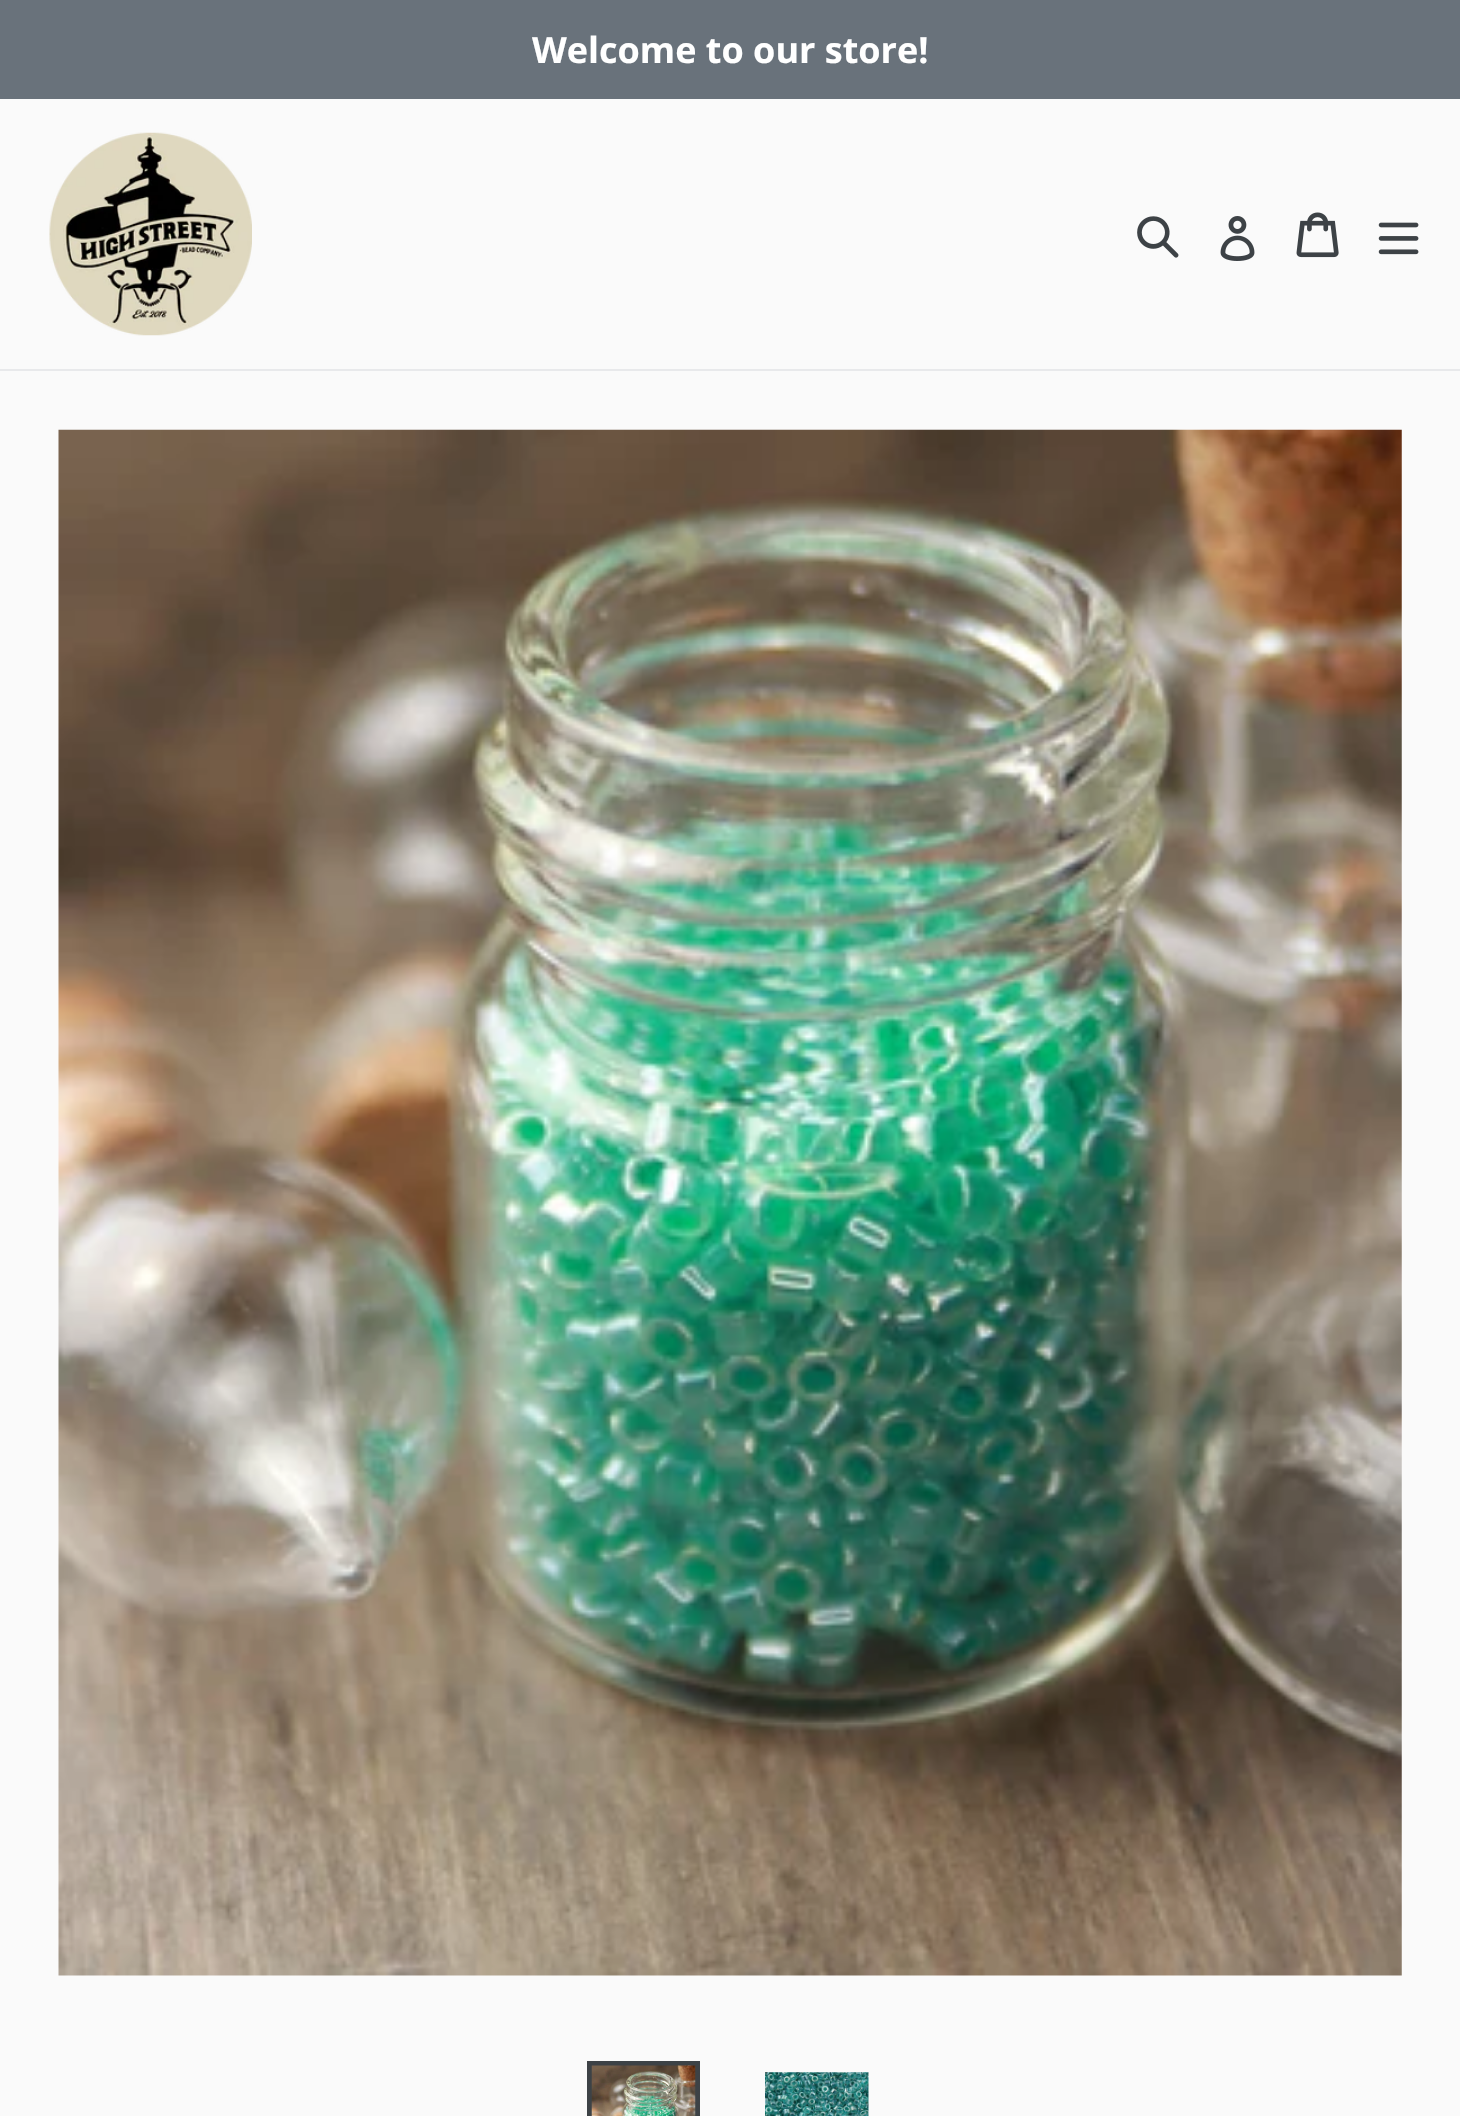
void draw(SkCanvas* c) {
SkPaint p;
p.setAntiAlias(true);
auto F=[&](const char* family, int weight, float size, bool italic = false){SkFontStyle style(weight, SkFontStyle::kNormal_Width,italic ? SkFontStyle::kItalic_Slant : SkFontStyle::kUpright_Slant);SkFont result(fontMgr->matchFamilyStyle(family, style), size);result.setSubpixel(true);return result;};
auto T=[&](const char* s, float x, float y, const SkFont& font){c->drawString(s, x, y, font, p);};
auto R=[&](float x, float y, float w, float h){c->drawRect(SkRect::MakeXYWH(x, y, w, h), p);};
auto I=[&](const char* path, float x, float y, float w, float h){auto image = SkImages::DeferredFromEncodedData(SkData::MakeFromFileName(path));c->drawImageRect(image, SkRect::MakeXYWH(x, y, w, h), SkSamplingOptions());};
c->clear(0xfffafafa);
p.setColor(0xff69727b);
R(0,0,1460,99);
auto f1 = F("Open Sans",700,36);
p.setColor(0xffffffff);
T("Welcome to our store!",532,63,f1);
p.setColor(0xffe8e9eb);
R(0,369,1460,2);
I("1.png",49,132,203,204);
I("2.png",1137,216,42,42);
I("3.png",1220,216,35,45);
I("4.png",1296,212,43,46);
I("5.png",1378,222,41,33);
I("6.png",58,429,1344,1547);
p.setStroke(true);
p.setStrokeWidth(5);
p.setColor(0xff3d4246);
c->drawRect(SkRect::MakeXYWH(589.5,2063.5,108,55),p);
I("7.png",591,2065,105,51);
I("8.png",765,2072,104,44);
}
